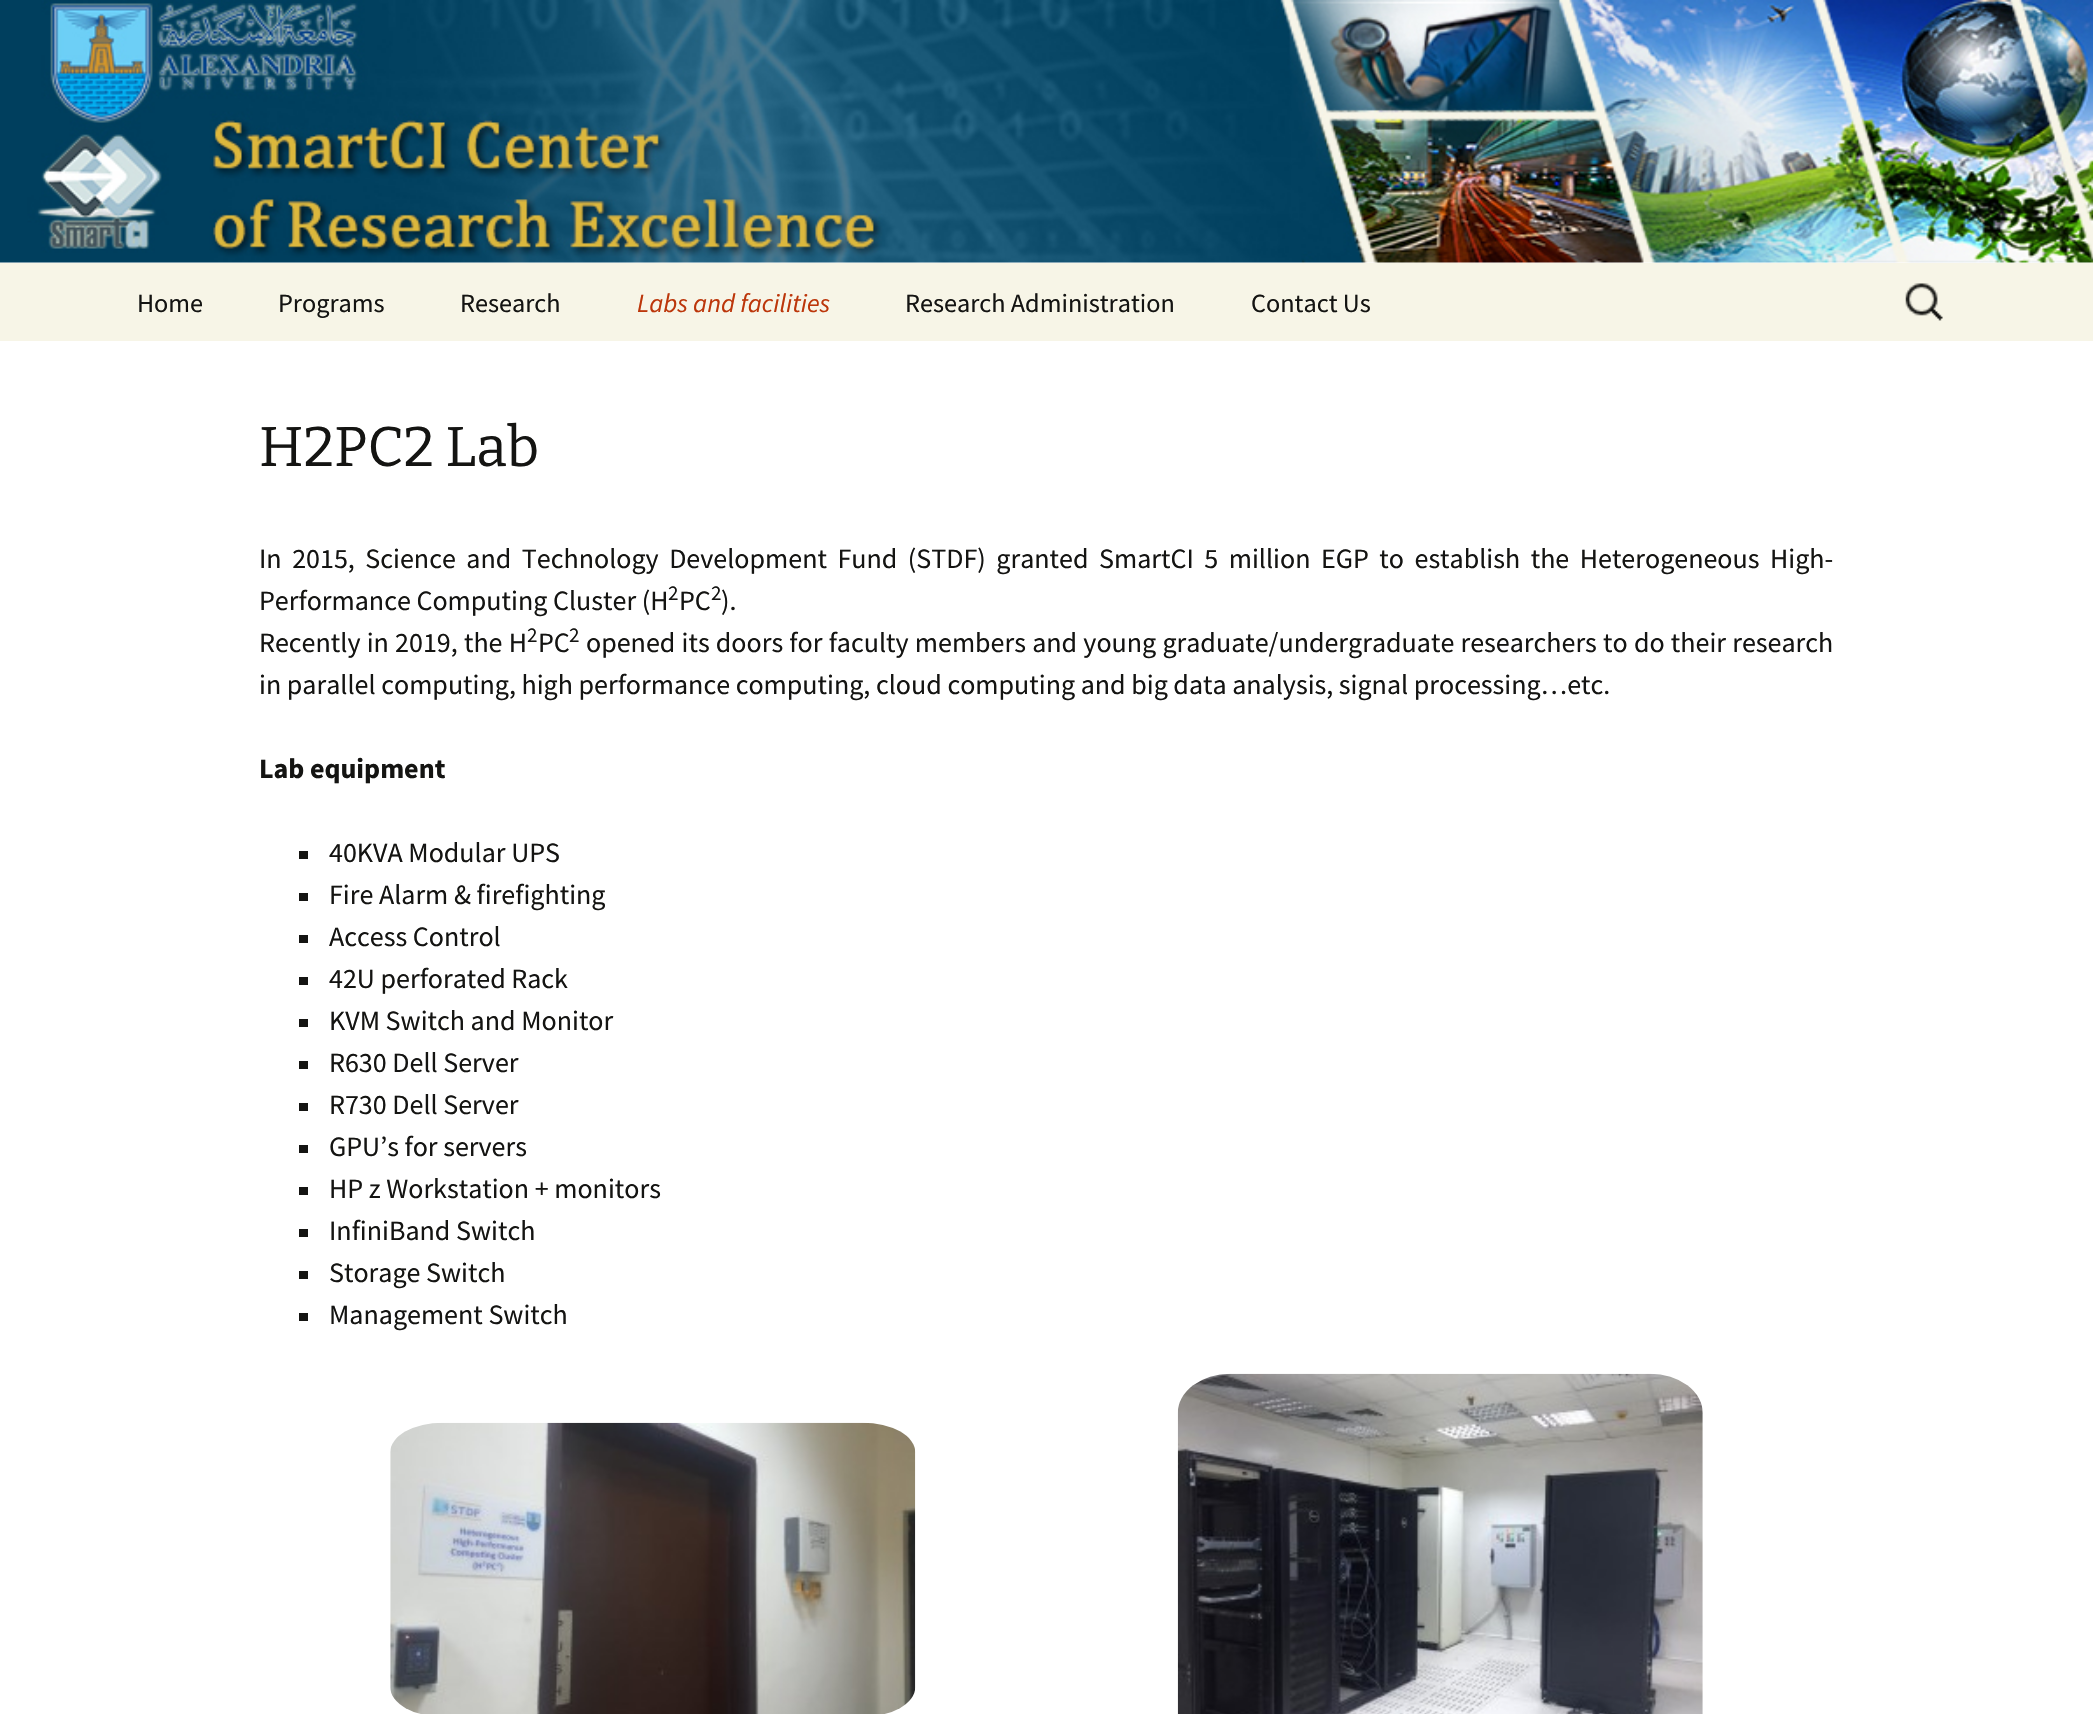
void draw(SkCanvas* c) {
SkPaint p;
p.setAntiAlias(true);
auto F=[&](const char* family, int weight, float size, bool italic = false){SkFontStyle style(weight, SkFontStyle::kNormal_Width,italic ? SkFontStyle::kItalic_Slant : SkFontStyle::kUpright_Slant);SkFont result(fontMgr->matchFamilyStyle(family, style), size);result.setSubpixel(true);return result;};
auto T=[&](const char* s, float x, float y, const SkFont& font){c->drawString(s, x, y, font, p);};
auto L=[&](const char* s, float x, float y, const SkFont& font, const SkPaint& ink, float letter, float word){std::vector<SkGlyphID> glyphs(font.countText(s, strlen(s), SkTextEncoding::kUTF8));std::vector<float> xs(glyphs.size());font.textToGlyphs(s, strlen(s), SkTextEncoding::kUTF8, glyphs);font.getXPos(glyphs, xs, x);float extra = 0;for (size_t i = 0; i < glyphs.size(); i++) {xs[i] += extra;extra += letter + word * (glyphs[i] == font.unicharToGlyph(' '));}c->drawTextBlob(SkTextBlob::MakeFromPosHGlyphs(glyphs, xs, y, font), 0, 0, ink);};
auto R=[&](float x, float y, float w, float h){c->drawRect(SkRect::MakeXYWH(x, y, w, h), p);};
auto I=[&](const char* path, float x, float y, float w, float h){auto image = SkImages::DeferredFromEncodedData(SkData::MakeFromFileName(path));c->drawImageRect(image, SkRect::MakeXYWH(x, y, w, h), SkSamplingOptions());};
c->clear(0xffffffff);
I("1.png",0,0,2093,263);
p.setColor(0xfff7f5e7);
R(0,263,2093,78);
auto f1 = F("Source Sans Pro",400,26.25);
p.setColor(0xff141412);
T("Home",137,312,f1);
T("Programs",278,312,f1);
T("Research",460,312,f1);
auto f2 = F("Source Sans Pro",400,26.25,true);
p.setColor(0xffbc360a);
T("Labs and facilities",637,312,f2);
p.setColor(0xff141412);
T("Research Administration",905,312,f1);
T("Contact Us",1251,312,f1);
I("2.png",1905,283,38,38);
auto f3 = F("Bitter",400,56);
T("H2PC2 Lab",259,466,f3);
auto f4 = F("Source Sans Pro",400,28);
L("In 2015, Science and Technology Development Fund (STDF) granted SmartCI 5 million EGP to establish the Heterogeneous High-",259,568,f4,p,0,4.9);
T("Performance Computing Cluster (H",259,610,f4);
auto f5 = F("Source Sans Pro",400,21);
T("2",668,600,f5);
T("PC",679,610,f4);
T("2",711,600,f5);
T(").",721,610,f4);
L("Recently in 2019, the H",259,652,f4,p,0,.6);
T("2",527,642,f5);
T("PC",538,652,f4);
T("2",569,642,f5);
L("opened its doors for faculty members and young graduate/undergraduate researchers to do their research",586,652,f4,p,0,.6);
T("in parallel computing, high performance computing, cloud computing and big data analysis, signal processing…etc.",259,694,f4);
auto f6 = F("Source Sans Pro",700,28);
T("Lab equipment",259,778,f6);
R(299,851,9,8);
T("40KVA Modular UPS",329,862,f4);
R(299,893,9,8);
T("Fire Alarm & firefighting",329,904,f4);
R(299,935,9,8);
T("Access Control",329,946,f4);
R(299,977,9,8);
T("42U perforated Rack",329,988,f4);
R(299,1019,9,8);
T("KVM Switch and Monitor",329,1030,f4);
R(299,1061,9,8);
T("R630 Dell Server",329,1072,f4);
R(299,1103,9,8);
T("R730 Dell Server",329,1114,f4);
R(299,1145,9,8);
T("GPU’s for servers",329,1156,f4);
R(299,1187,9,8);
T("HP z Workstation + monitors",329,1198,f4);
R(299,1229,9,8);
T("InfiniBand Switch",329,1240,f4);
R(299,1271,9,8);
T("Storage Switch",329,1282,f4);
R(299,1313,9,8);
T("Management Switch",329,1324,f4);
I("3.png",390,1422,526,292);
I("4.png",1177,1373,526,341);
}
